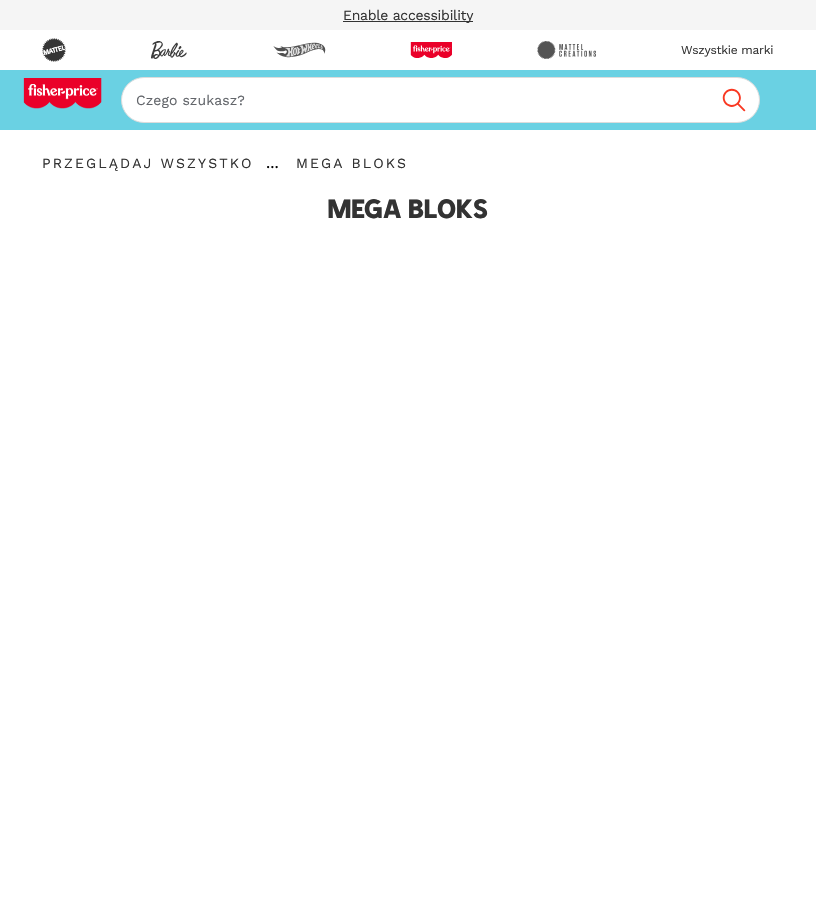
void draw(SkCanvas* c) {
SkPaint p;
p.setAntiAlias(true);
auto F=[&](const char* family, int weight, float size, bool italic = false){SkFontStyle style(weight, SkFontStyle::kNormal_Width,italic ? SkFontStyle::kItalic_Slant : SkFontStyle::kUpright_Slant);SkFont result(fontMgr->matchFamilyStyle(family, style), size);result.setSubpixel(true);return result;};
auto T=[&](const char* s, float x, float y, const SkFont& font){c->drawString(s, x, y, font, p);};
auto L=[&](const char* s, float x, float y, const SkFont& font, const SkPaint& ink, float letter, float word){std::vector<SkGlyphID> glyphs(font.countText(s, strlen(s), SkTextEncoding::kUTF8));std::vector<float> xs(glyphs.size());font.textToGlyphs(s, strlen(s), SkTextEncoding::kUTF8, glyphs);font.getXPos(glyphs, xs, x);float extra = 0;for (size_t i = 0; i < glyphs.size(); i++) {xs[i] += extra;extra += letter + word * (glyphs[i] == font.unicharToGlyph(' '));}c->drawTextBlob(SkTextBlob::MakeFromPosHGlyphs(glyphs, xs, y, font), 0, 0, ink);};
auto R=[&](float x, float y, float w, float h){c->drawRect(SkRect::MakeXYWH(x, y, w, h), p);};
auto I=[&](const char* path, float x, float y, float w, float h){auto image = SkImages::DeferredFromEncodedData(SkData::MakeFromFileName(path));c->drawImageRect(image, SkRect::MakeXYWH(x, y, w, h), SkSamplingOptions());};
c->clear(0xffffffff);
p.setColor(0xfff5f5f5);
R(0,0,816,30);
p.setColor(0xff333333);
R(343,21,130,1);
auto f1 = F("Work Sans",400,14);
L("Enable accessibility",343,20,f1,p,-.25,0);
I("1.png",42,38,24,24);
I("2.png",151,41,36,18);
I("3.png",273,42,53,16);
I("4.png",410,42,42,16);
I("5.png",537,41,59,18);
auto f2 = F("Work Sans",400,12);
L("Wszystkie marki",681,54,f2,p,-.25,0);
p.setColor(0xff6ad1e3);
R(0,70,816,60);
I("6.png",23,78,79,31);
p.setColor(0xffffffff);
c->drawRoundRect(SkRect::MakeXYWH(121.5,77.5,638,45),22.5,22.5,p);
p.setStroke(true);
p.setStrokeWidth(1);
p.setColor(0xffdcdcdc);
c->drawRoundRect(SkRect::MakeXYWH(121.5,77.5,638,45),22.5,22.5,p);
p.setStroke(false);
p.setColor(0xff62656a);
L("Czego szukasz?",136,105,f1,p,.1,0);
I("7.png",722,88,24,24);
p.setColor(0xff333333);
L("PRZEGLĄDAJ WSZYSTKO",42,168,f1,p,2.1,0);
auto f3 = F("Work Sans",400,16);
p.setColor(0xff000000);
T("...",266,168,f3);
p.setColor(0xff333333);
L("MEGA BLOKS",296,168,f1,p,2.1,0);
auto f4 = F("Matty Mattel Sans",700,28);
L("MEGA BLOKS",328,218,f4,p,.25,0);
}
